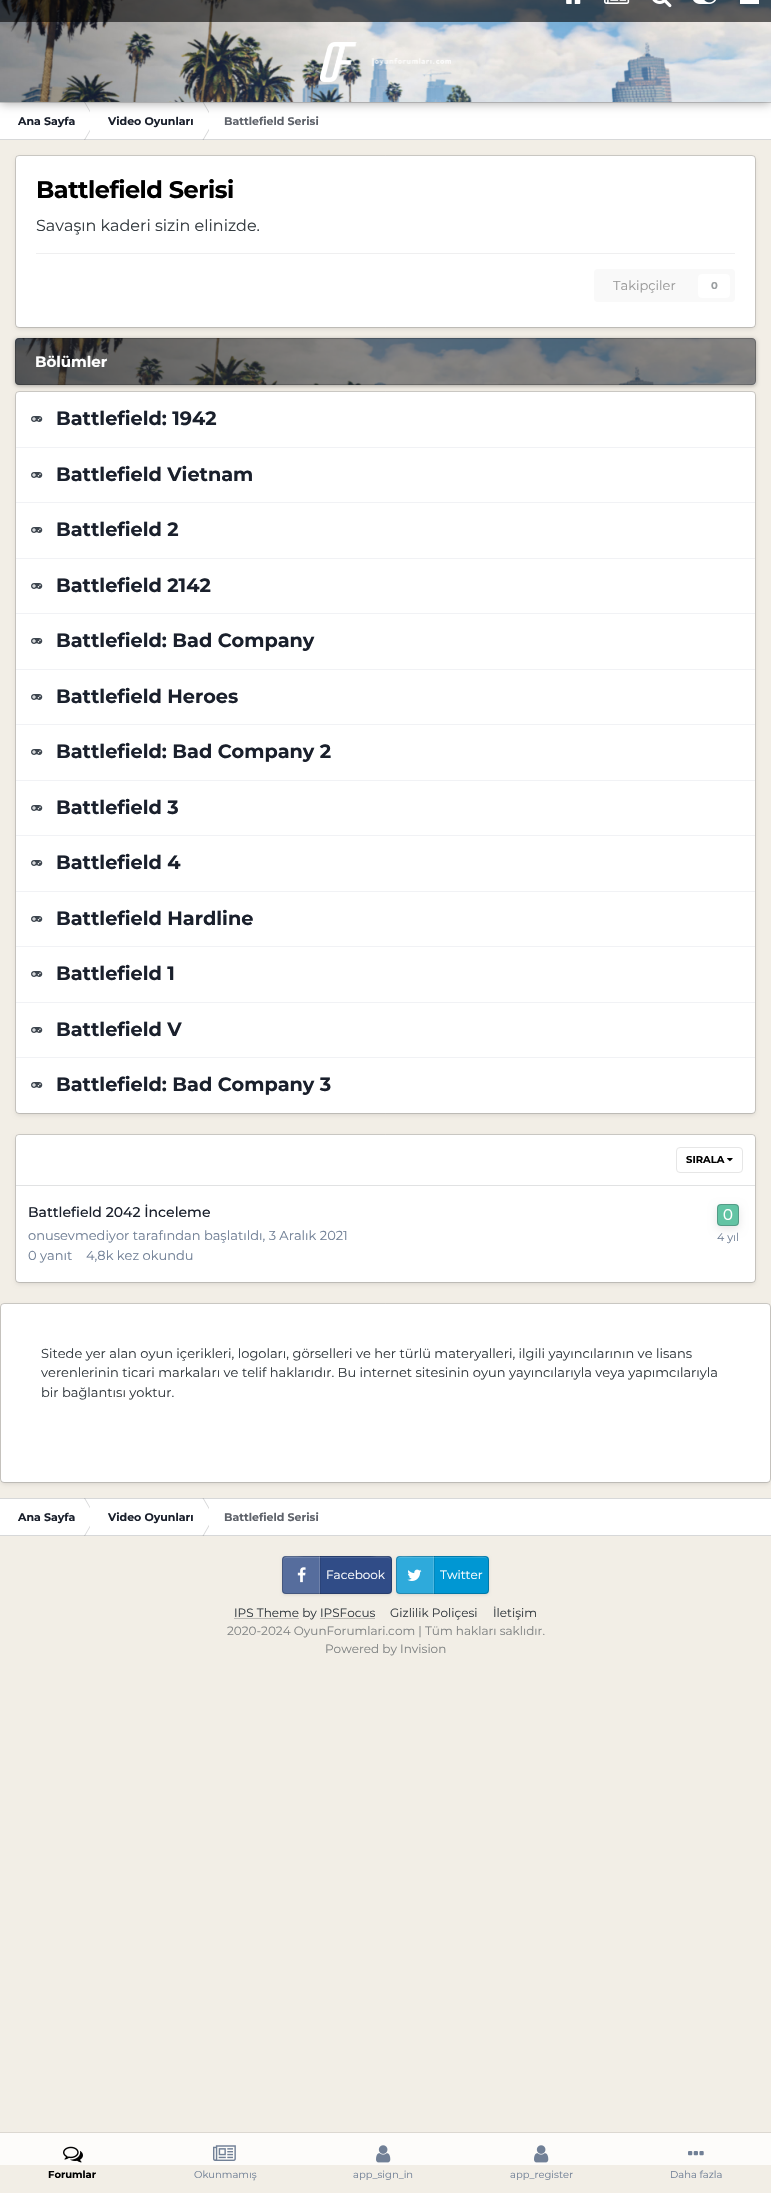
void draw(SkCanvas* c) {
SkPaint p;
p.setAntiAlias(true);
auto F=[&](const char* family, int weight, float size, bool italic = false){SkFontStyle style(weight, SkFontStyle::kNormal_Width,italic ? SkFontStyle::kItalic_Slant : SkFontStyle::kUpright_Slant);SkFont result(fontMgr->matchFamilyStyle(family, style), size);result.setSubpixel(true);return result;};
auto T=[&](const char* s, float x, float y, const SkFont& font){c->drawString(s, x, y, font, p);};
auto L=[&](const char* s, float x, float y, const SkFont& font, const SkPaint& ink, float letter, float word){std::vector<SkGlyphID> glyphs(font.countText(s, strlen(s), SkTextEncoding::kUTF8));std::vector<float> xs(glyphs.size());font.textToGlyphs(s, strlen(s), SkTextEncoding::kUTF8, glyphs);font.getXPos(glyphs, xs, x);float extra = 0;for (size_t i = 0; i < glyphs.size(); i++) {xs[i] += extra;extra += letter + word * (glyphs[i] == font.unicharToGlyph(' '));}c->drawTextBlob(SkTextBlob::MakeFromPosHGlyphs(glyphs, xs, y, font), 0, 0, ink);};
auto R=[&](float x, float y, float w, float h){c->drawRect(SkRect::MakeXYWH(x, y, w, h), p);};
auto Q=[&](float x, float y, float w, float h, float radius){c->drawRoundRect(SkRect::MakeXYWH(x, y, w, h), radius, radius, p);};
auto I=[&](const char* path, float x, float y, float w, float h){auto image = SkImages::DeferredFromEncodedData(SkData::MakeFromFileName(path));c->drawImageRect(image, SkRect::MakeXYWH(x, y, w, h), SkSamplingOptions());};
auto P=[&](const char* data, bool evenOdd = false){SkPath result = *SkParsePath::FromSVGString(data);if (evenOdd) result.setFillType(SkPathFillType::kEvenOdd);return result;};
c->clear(0xfff2eee6);
p.setColor(0xfffdfcfa);
R(0,2133,771,32);
p.setColor(0xffffffff);
R(0,102,771,38);
c->save();
c->clipRect(SkRect::MakeXYWH(0,102,90,38));
p.setColor(0xffd7d8d9);
c->drawPath(P("M84 102h1l11 19h-1zm0 38h1l11-19h-1z"),p);
c->restore();
c->save();
c->clipRect(SkRect::MakeXYWH(90,102,119,38));
c->drawPath(P("M202.5 102h1l11 19h-1zm0 38h1l11-19h-1z"),p);
c->restore();
p.setColor(0x33353c41);
R(0,102,771,1);
p.setColor(0x59000000);
p.setMaskFilter(SkMaskFilter::MakeBlur(kNormal_SkBlurStyle, 5));
c->drawRect(SkRect::MakeXYWH(0,-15,771,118),p);
p.setMaskFilter(nullptr);
I("1.png",0,0,771,102);
p.setColor(0x99000000);
R(0,0,771,22);
I("2.png",566,0,15,4);
I("3.png",604,0,26,4);
I("4.png",652,0,20,8);
I("5.png",693,0,23,4);
p.setColor(0xffffffff);
R(740,0,19,4);
I("6.png",320,42,131,40);
p.setColor(0x33353c41);
R(0,139,771,1);
auto f1 = F("Montserrat",700,11);
p.setColor(0xff1a202c);
T("Ana Sayfa",18,125,f1);
T("Video Oyunları",108,125,f1);
p.setColor(0xff5f636b);
T("Battlefield Serisi",224,125,f1);
p.setColor(0x1a000000);
p.setMaskFilter(SkMaskFilter::MakeBlur(kNormal_SkBlurStyle, 2));
c->drawRoundRect(SkRect::MakeXYWH(16,158,739,171),3,3,p);
p.setMaskFilter(nullptr);
p.setColor(0xffffffff);
Q(16,156,739,171,3);
p.setStroke(true);
p.setStrokeWidth(1);
p.setColor(0x33353c41);
c->drawRoundRect(SkRect::MakeXYWH(15.5,155.5,740,172),3.5,3.5,p);
auto f2 = F("Montserrat",700,24);
p.setStroke(false);
p.setColor(0xff000000);
L("Battlefield Serisi",36,198,f2,p,-.5,0);
auto f3 = F("Montserrat",400,16);
p.setColor(0xff353c41);
T("Savaşın kaderi sizin elinizde.",36,231,f3);
p.setColor(0xffefeff0);
R(36,253,699,1);
p.setColor(0xfff9f9f9);
Q(594,269,141,33,4);
auto f4 = F("Montserrat",400,13);
p.setColor(0xff999999);
T("Takipçiler",613,290,f4);
p.setColor(0xffffffff);
Q(698,274,32,24,4);
auto f5 = F("Montserrat",700,10);
p.setColor(0xff9a9ea0);
T("0",711,289,f5);
p.setColor(0x4d000000);
p.setMaskFilter(SkMaskFilter::MakeBlur(kNormal_SkBlurStyle, 2));
c->drawRoundRect(SkRect::MakeXYWH(15,339,741,47),4,4,p);
p.setMaskFilter(nullptr);
I("7.png",15,338,741,47);
p.setColor(0x801e1e1e);
c->drawPath(P("M19 338c-2 0-4 2-4 4v39c0 2 2 4 4 4h733c2 0 4-2 4-4v-39c0-2-2-4-4-4z"),p);
p.setStroke(true);
p.setColor(0x33000000);
c->drawRoundRect(SkRect::MakeXYWH(15.5,338.5,740,46),3.5,3.5,p);
auto f6 = F("Montserrat",700,15);
p.setStroke(false);
p.setColor(0xffffffff);
T("Bölümler",35,367,f6);
p.setColor(0x1a000000);
p.setMaskFilter(SkMaskFilter::MakeBlur(kNormal_SkBlurStyle, 2));
c->drawRoundRect(SkRect::MakeXYWH(16,394,739,721),3,3,p);
p.setMaskFilter(nullptr);
p.setColor(0xffffffff);
Q(16,392,739,721,3);
p.setStroke(true);
p.setColor(0x33353c41);
c->drawRoundRect(SkRect::MakeXYWH(15.5,391.5,740,722),3.5,3.5,p);
p.setStroke(false);
p.setColor(0xfff1f2f5);
R(16,447,739,1);
I("8.png",31,416,12,6);
auto f7 = F("Montserrat",700,19.25);
p.setColor(0xff1a202c);
T("Battlefield: 1942",56,425,f7);
p.setColor(0xfff1f2f5);
R(16,502,739,1);
I("8.png",31,472,12,6);
p.setColor(0xff1a202c);
T("Battlefield Vietnam",56,481,f7);
p.setColor(0xfff1f2f5);
R(16,558,739,1);
I("8.png",31,527,12,6);
p.setColor(0xff1a202c);
T("Battlefield 2",56,536,f7);
p.setColor(0xfff1f2f5);
R(16,613,739,1);
I("8.png",31,583,12,6);
p.setColor(0xff1a202c);
T("Battlefield 2142",56,592,f7);
p.setColor(0xfff1f2f5);
R(16,669,739,1);
I("8.png",31,638,12,6);
p.setColor(0xff1a202c);
T("Battlefield: Bad Company",56,647,f7);
p.setColor(0xfff1f2f5);
R(16,724,739,1);
I("8.png",31,694,12,6);
p.setColor(0xff1a202c);
T("Battlefield Heroes",56,703,f7);
p.setColor(0xfff1f2f5);
R(16,780,739,1);
I("8.png",31,749,12,6);
p.setColor(0xff1a202c);
T("Battlefield: Bad Company 2",56,758,f7);
p.setColor(0xfff1f2f5);
R(16,835,739,1);
I("8.png",31,805,12,6);
p.setColor(0xff1a202c);
T("Battlefield 3",56,814,f7);
p.setColor(0xfff1f2f5);
R(16,891,739,1);
I("8.png",31,860,12,6);
p.setColor(0xff1a202c);
T("Battlefield 4",56,869,f7);
p.setColor(0xfff1f2f5);
R(16,946,739,1);
I("8.png",31,916,12,6);
p.setColor(0xff1a202c);
T("Battlefield Hardline",56,925,f7);
p.setColor(0xfff1f2f5);
R(16,1002,739,1);
I("8.png",31,971,12,6);
p.setColor(0xff1a202c);
T("Battlefield 1",56,980,f7);
p.setColor(0xfff1f2f5);
R(16,1057,739,1);
I("8.png",31,1027,12,6);
p.setColor(0xff1a202c);
T("Battlefield V",56,1036,f7);
I("8.png",31,1082,12,6);
T("Battlefield: Bad Company 3",56,1091,f7);
p.setColor(0x1a000000);
p.setMaskFilter(SkMaskFilter::MakeBlur(kNormal_SkBlurStyle, 2));
c->drawRoundRect(SkRect::MakeXYWH(16,1137,739,147),3,3,p);
p.setMaskFilter(nullptr);
p.setColor(0xffffffff);
Q(16,1135,739,147,3);
p.setStroke(true);
p.setColor(0x33353c41);
c->drawRoundRect(SkRect::MakeXYWH(15.5,1134.5,740,148),3.5,3.5,p);
p.setStroke(false);
p.setColor(0xffffffff);
c->drawPath(P("M20 1135h731c2 0 4 2 4 4v47h-739v-47c0-2 2-4 4-4z"),p);
p.setColor(0xffe1e2e3);
R(16,1185,739,1);
I("9.png",727,1158,6,4);
p.setStroke(true);
p.setColor(0xffe6e6e6);
c->drawRoundRect(SkRect::MakeXYWH(676.5,1147.5,66,25),3.5,3.5,p);
p.setStroke(false);
p.setColor(0xff000000);
T("SIRALA",686,1163,f5);
auto f8 = F("Montserrat",500,14);
p.setColor(0xff1a202c);
T("Battlefield 2042 İnceleme",28,1217,f8);
p.setColor(0xff718096);
T("onusevmediyor tarafından başlatıldı, 3 Aralık 2021",28,1240,f4);
I("10.png",717,1204,22,22);
c->save();
c->clipPath(P("M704 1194h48v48h-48zm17 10h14c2 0 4 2 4 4v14c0 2-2 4-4 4h-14c-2 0-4-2-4-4v-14c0-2 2-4 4-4z",true),true);
p.setColor(0x1a000000);
p.setMaskFilter(SkMaskFilter::MakeBlur(kNormal_SkBlurStyle, 4));
c->drawRoundRect(SkRect::MakeXYWH(717,1207,22,22),4,4,p);
p.setMaskFilter(nullptr);
c->restore();
p.setStroke(true);
p.setColor(0x4d353c41);
c->drawRoundRect(SkRect::MakeXYWH(717.5,1204.5,21,21),3.5,3.5,p);
auto f9 = F("Montserrat",400,11);
p.setStroke(false);
p.setColor(0xff718096);
T("4 yıl",717,1241,f9);
T("0 yanıt",28,1260,f4);
T("4,8k kez okundu",86,1260,f4);
p.setColor(0x1a000000);
p.setMaskFilter(SkMaskFilter::MakeBlur(kNormal_SkBlurStyle, 2));
c->drawRoundRect(SkRect::MakeXYWH(1,1306,769,178),3,3,p);
p.setMaskFilter(nullptr);
p.setColor(0xffffffff);
Q(1,1304,769,178,3);
p.setStroke(true);
p.setColor(0x33353c41);
c->drawRoundRect(SkRect::MakeXYWH(.5,1303.5,770,179),3.5,3.5,p);
p.setStroke(false);
p.setColor(0xff353c41);
T("Sitede yer alan oyun içerikleri, logoları, görselleri ve her türlü materyalleri, ilgili yayıncılarının ve lisans",41,1358,f4);
T("verenlerinin ticari markaları ve telif haklarıdır. Bu internet sitesinin oyun yayıncılarıyla veya yapımcılarıyla",41,1377,f4);
T("bir bağlantısı yoktur.",41,1397,f4);
p.setColor(0xffffffff);
R(0,1498,771,38);
c->save();
c->clipRect(SkRect::MakeXYWH(0,1498,90,38));
p.setColor(0xffd7d8d9);
c->drawPath(P("M84 1498h1l11 19h-1zm0 38h1l11-19h-1z"),p);
c->restore();
c->save();
c->clipRect(SkRect::MakeXYWH(90,1498,119,38));
c->drawPath(P("M202.5 1498h1l11 19h-1zm0 38h1l11-19h-1z"),p);
c->restore();
p.setColor(0x33353c41);
R(0,1498,771,1);
R(0,1535,771,1);
p.setColor(0xff1a202c);
T("Ana Sayfa",18,1521,f1);
T("Video Oyunları",108,1521,f1);
p.setColor(0xff5f636b);
T("Battlefield Serisi",224,1521,f1);
p.setColor(0x1a000000);
p.setMaskFilter(SkMaskFilter::MakeBlur(kNormal_SkBlurStyle, 1.5));
c->drawRoundRect(SkRect::MakeXYWH(282,1557,110,38),4,4,p);
p.setMaskFilter(nullptr);
p.setColor(0xff304c87);
Q(282,1556,110,38,4);
p.setColor(0xff2b447a);
R(320,1556,1,38);
p.setColor(0x2effffff);
c->drawPath(P("M286 1556h34v38h-34c-2 0-4-2-4-4v-30c0-2 2-4 4-4z"),p);
p.setColor(0xff6f82ab);
R(319,1556,1,38);
p.setColor(0x26ffffff);
c->drawPath(P("M286 1558c-2 0-3 1-3 3c0-9 18-4 20-4h68c2 0 20-5 20 4c0-2-1-3-3-3z"),p);
I("11.png",297,1567,9,16);
p.setStroke(true);
p.setColor(0x33000000);
c->drawRoundRect(SkRect::MakeXYWH(282.5,1556.5,109,37),3.5,3.5,p);
auto f10 = F("Montserrat",400,12);
p.setStroke(false);
p.setColor(0xffffffff);
T("Facebook",326,1579,f10);
p.setColor(0x1a000000);
p.setMaskFilter(SkMaskFilter::MakeBlur(kNormal_SkBlurStyle, 1.5));
c->drawRoundRect(SkRect::MakeXYWH(396,1557,93,38),4,4,p);
p.setMaskFilter(nullptr);
p.setColor(0xff0097d3);
Q(396,1556,93,38,4);
p.setColor(0xff0088be);
R(434,1556,1,38);
p.setColor(0x2effffff);
c->drawPath(P("M400 1556h34v38h-34c-2 0-4-2-4-4v-30c0-2 2-4 4-4z"),p);
p.setColor(0xff4db7e0);
R(433,1556,1,38);
I("12.png",407,1569,15,12);
p.setColor(0x26ffffff);
c->drawPath(P("M400 1558c-2 0-3 1-3 3c0-8 14-4 17-4h57c3 0 17-4 17 4c0-2-1-3-3-3z"),p);
p.setStroke(true);
p.setColor(0x33000000);
c->drawRoundRect(SkRect::MakeXYWH(396.5,1556.5,92,37),3.5,3.5,p);
p.setStroke(false);
p.setColor(0xffffffff);
T("Twitter",440,1579,f10);
p.setColor(0xffbbbab6);
R(234,1618,65,1);
p.setColor(0xff353c41);
T("IPS Theme by IPSFocus",234,1617,f10);
p.setColor(0xffbbbab6);
R(320,1618,55,1);
p.setColor(0xff353c41);
T("Gizlilik Poliçesi",390,1617,f10);
T("İletişim",493,1617,f10);
p.setColor(0xff818484);
T("2020-2024 OyunForumlari.com | Tüm hakları saklıdır.",227,1635,f10);
T("Powered by Invision",325,1653,f10);
p.setColor(0xffdcd8d1);
R(0,2132,771,1);
I("13.png",63,2146,20,17);
p.setColor(0xff000000);
T("Forumlar",48,2178,f5);
I("14.png",213,2145,23,16);
auto f11 = F("Montserrat",400,10);
p.setColor(0xff718096);
T("Okunmamış",194,2178,f11);
I("15.png",376,2145,15,18);
T("app_sign_in",353,2178,f11);
I("15.png",534,2145,15,18);
T("app_register",510,2178,f11);
I("16.png",688,2151,16,5);
T("Daha fazla",670,2178,f11);
}
